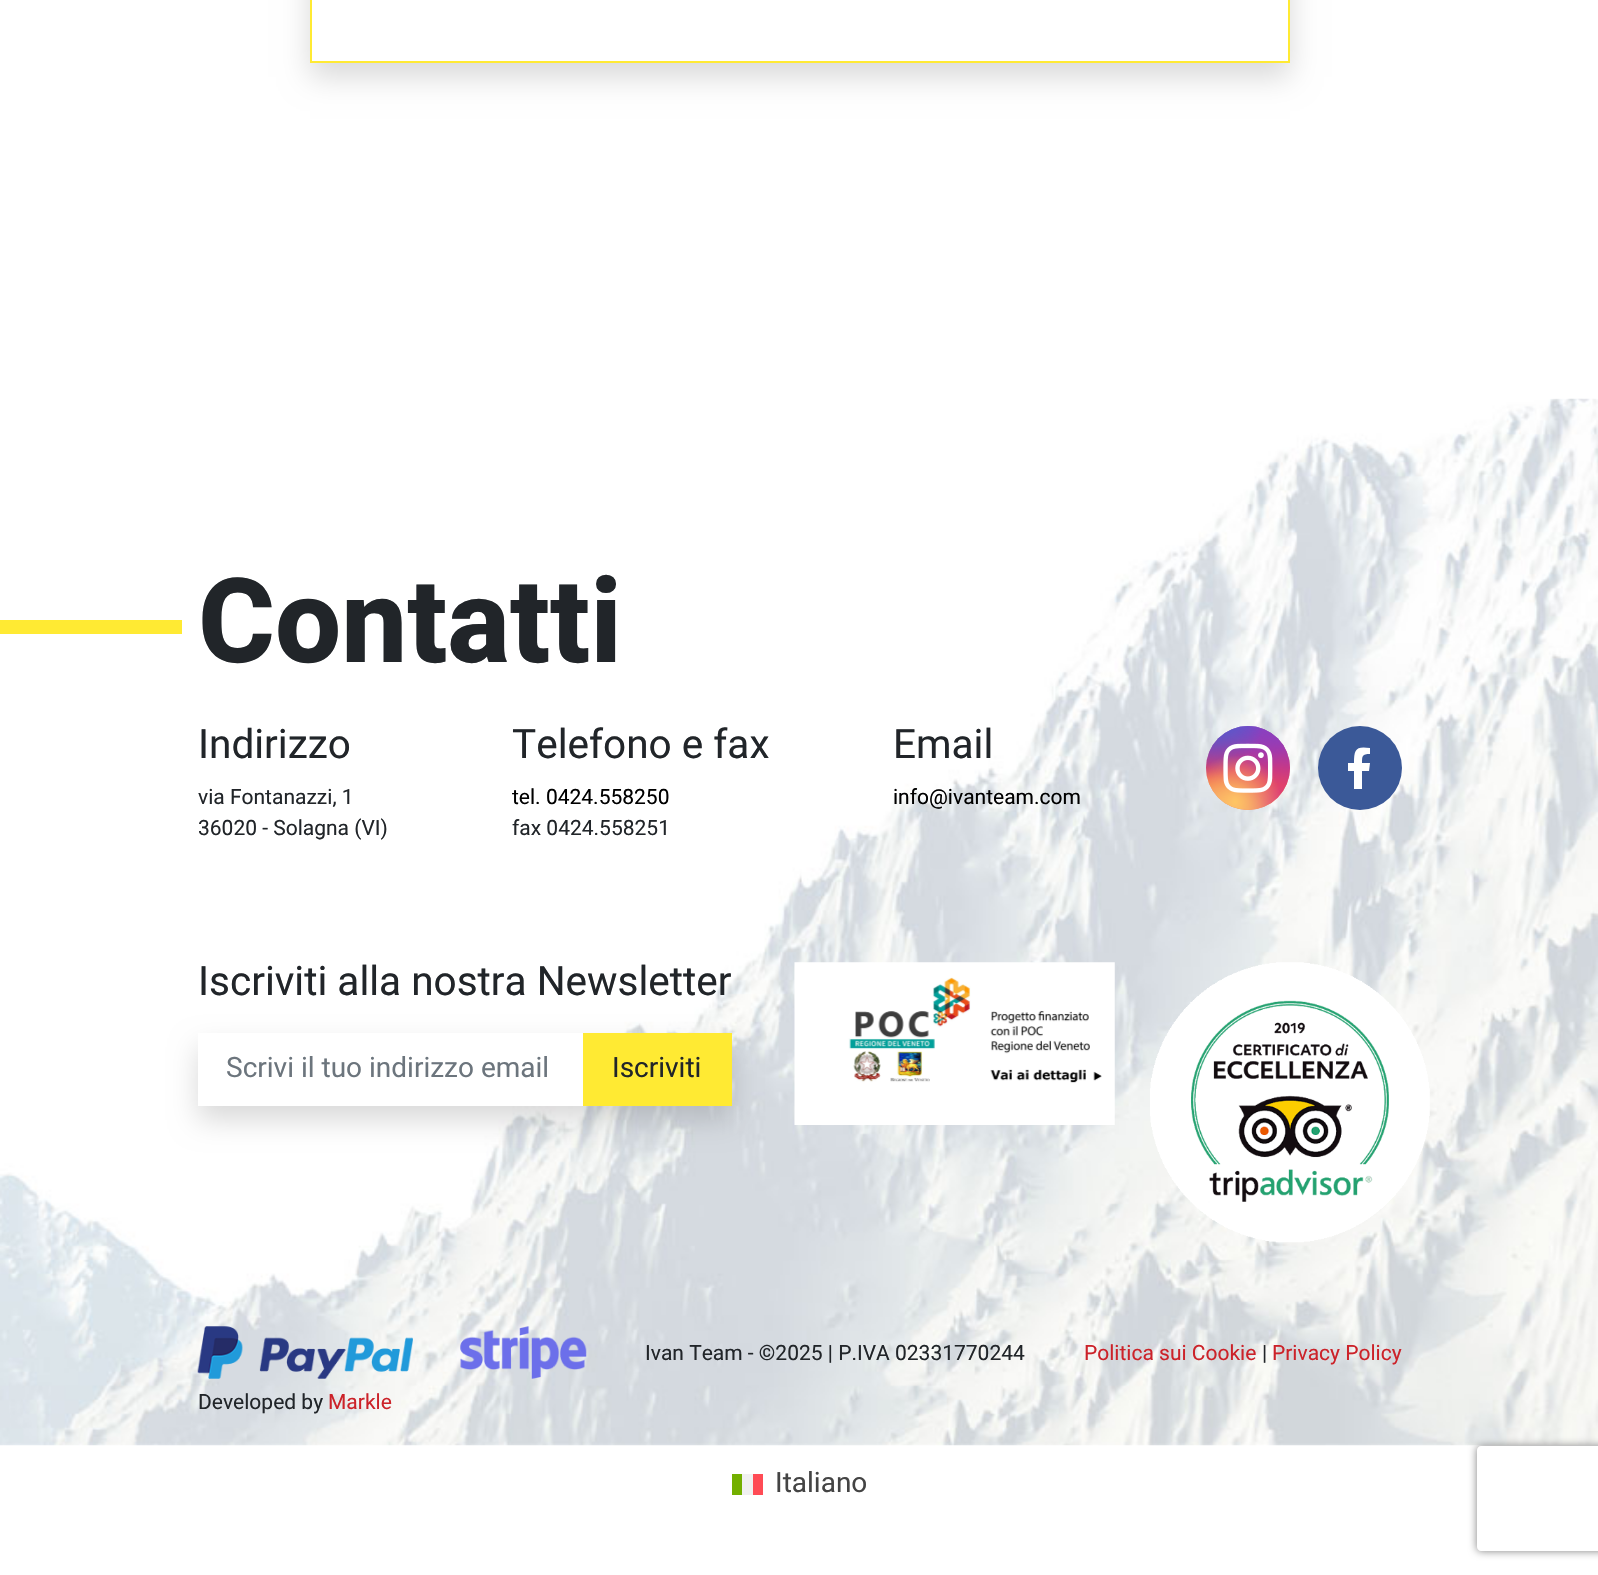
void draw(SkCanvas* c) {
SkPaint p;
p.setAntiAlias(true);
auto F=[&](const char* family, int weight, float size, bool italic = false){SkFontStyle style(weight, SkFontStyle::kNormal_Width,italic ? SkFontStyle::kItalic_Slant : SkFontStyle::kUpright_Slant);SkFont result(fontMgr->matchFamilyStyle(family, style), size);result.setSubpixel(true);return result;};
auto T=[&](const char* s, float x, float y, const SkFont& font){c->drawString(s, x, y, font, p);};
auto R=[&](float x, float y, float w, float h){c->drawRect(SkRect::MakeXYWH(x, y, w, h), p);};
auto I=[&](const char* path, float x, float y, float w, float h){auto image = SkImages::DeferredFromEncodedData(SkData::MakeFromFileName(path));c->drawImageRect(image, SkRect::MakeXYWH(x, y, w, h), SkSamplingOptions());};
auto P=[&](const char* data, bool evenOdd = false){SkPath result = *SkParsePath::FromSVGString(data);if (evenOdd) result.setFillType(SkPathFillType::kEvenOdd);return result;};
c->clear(0xffffffff);
c->save();
c->clipPath(P("M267 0h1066v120h-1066zm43-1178h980v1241h-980z",true),true);
p.setColor(0x26000000);
p.setMaskFilter(SkMaskFilter::MakeBlur(kNormal_SkBlurStyle, 14));
c->drawRect(SkRect::MakeXYWH(310,-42,980,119),p);
p.setMaskFilter(nullptr);
c->restore();
p.setStroke(true);
p.setStrokeWidth(2);
p.setColor(0xffffea33);
c->drawRect(SkRect::MakeXYWH(311,-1,978,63),p);
I("1.png",0,398,1598,1048);
p.setStroke(false);
R(0,620,182,14);
auto f1 = F("Heebo",800,117.5);
p.setColor(0xff212529);
T("Contatti",198,662,f1);
auto f2 = F("Heebo",400,40.5);
T("Indirizzo",198,758,f2);
auto f3 = F("Heebo",400,21);
T("via Fontanazzi, 1",198,804,f3);
T("36020 - Solagna (VI)",198,835,f3);
T("Telefono e fax",512,758,f2);
p.setColor(0xff000000);
T("tel. 0424.558250",512,804,f3);
p.setColor(0xff212529);
T("fax 0424.558251",512,835,f3);
T("Email",893,758,f2);
p.setColor(0xff000000);
T("info@ivanteam.com",893,804,f3);
{
const SkColor colors[] = {0xff6559ca,0xffbc318f,0xffe33f5f,0xfff77638,0xfffec66d};
const float stops[] = {0,.3,.5,.7,1};
const SkPoint ends[] = {{1248,726}, {1248,810}};
p.setShader(SkGradientShader::MakeLinear(ends, colors, stops, 5, SkTileMode::kClamp));
p.setAlpha(255);
}
c->drawCircle(1248,768,42,p);
{
const SkColor colors[] = {0xffd9317a,0x00d9317a};
const float stops[] = {0,1};
p.setShader(SkGradientShader::MakeRadial({1290,810}, 119, colors, stops, 2, SkTileMode::kClamp));
p.setAlpha(255);
}
c->drawCircle(1248,768,42,p);
{
const SkColor colors[] = {0xff893dc2,0x00893dc2};
const float stops[] = {0,.5};
SkMatrix m = SkMatrix::Translate(1256,709).preScale(71,143);
p.setShader(SkGradientShader::MakeRadial({0, 0}, 1, colors, stops, 2, SkTileMode::kClamp, 0, &m));
p.setAlpha(255);
}
c->drawCircle(1248,768,42,p);
{
const SkColor colors[] = {0xff893dc2,0x00893dc2};
const float stops[] = {0,.5};
p.setShader(SkGradientShader::MakeRadial({1290,726}, 119, colors, stops, 2, SkTileMode::kClamp));
p.setAlpha(255);
}
c->drawCircle(1248,768,42,p);
{
const SkColor colors[] = {0xff5258cf,0x005258cf};
const float stops[] = {0,.5};
SkMatrix m = SkMatrix::Translate(1223,684).preScale(95,178);
p.setShader(SkGradientShader::MakeRadial({0, 0}, 1, colors, stops, 2, SkTileMode::kClamp, 0, &m));
p.setAlpha(255);
}
c->drawCircle(1248,768,42,p);
{
const SkColor colors[] = {0xff5258cf,0x005258cf};
const float stops[] = {0,.5};
SkMatrix m = SkMatrix::Translate(1206,705).preScale(119,148);
p.setShader(SkGradientShader::MakeRadial({0, 0}, 1, colors, stops, 2, SkTileMode::kClamp, 0, &m));
p.setAlpha(255);
}
c->drawCircle(1248,768,42,p);
{
const SkColor colors[] = {0xfffec564,0x00fec564};
const float stops[] = {0,.5};
p.setShader(SkGradientShader::MakeRadial({1206,844}, 145, colors, stops, 2, SkTileMode::kClamp));
p.setAlpha(255);
}
c->drawCircle(1248,768,42,p);
{
const SkColor colors[] = {0xfffec564,0x00fec564};
const float stops[] = {0,.5};
p.setShader(SkGradientShader::MakeRadial({1235,802}, 93, colors, stops, 2, SkTileMode::kClamp));
p.setAlpha(255);
}
c->drawCircle(1248,768,42,p);
I("2.png",1223,743,50,50);
p.setShader(nullptr);
p.setColor(0xff3b5998);
c->drawCircle(1360,768,42,p);
p.setColor(0xffffffff);
c->drawPath(P("M1369 771h-7v18h-8v-18h-6v-8h6c0-14 2-17 16-15v6c-8 0-8 2-8 9h8z"),p);
p.setColor(0xff212529);
T("Iscriviti alla nostra Newsletter",198,995,f2);
p.setColor(0x26000000);
p.setMaskFilter(SkMaskFilter::MakeBlur(kNormal_SkBlurStyle, 14));
c->drawRect(SkRect::MakeXYWH(198,1047,534,73),p);
p.setMaskFilter(nullptr);
p.setColor(0xffffffff);
R(198,1033,385,73);
auto f4 = F("Heebo",400,28);
p.setColor(0xff6c757d);
T("Scrivi il tuo indirizzo email",226,1077,f4);
p.setColor(0xffffea33);
R(583,1033,149,73);
p.setColor(0xff212529);
T("Iscriviti",612,1077,f4);
I("3.png",794,962,321,163);
I("4.png",1150,962,280,281);
I("5.png",197,1326,216,53);
I("6.png",460,1326,127,53);
T("Ivan Team - ©2025 | P.IVA 02331770244",645,1360,f3);
p.setColor(0xffcc2229);
T("Politica sui Cookie",1084,1360,f3);
p.setColor(0xff212529);
T("|",1262,1360,f3);
p.setColor(0xffcc2229);
T("Privacy Policy",1272,1360,f3);
p.setColor(0xff212529);
T("Developed by",198,1409,f3);
p.setColor(0xffcc2229);
T("Markle",328,1409,f3);
p.setColor(0xff73af00);
R(732,1474,10,21);
p.setColor(0xfff0f0f0);
R(742,1474,11,21);
p.setColor(0xffff4b55);
R(753,1474,10,21);
p.setColor(0xff444444);
T("Italiano",775,1492,f4);
c->save();
c->clipPath(P("M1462 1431h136v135h-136zm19 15h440c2 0 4 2 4 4v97c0 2-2 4-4 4h-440c-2 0-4-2-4-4v-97c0-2 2-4 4-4z",true),true);
p.setColor(0xff808080);
p.setMaskFilter(SkMaskFilter::MakeBlur(kNormal_SkBlurStyle, 4.5));
c->drawRoundRect(SkRect::MakeXYWH(1477,1446,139,105),4,4,p);
p.setMaskFilter(nullptr);
c->restore();
}
